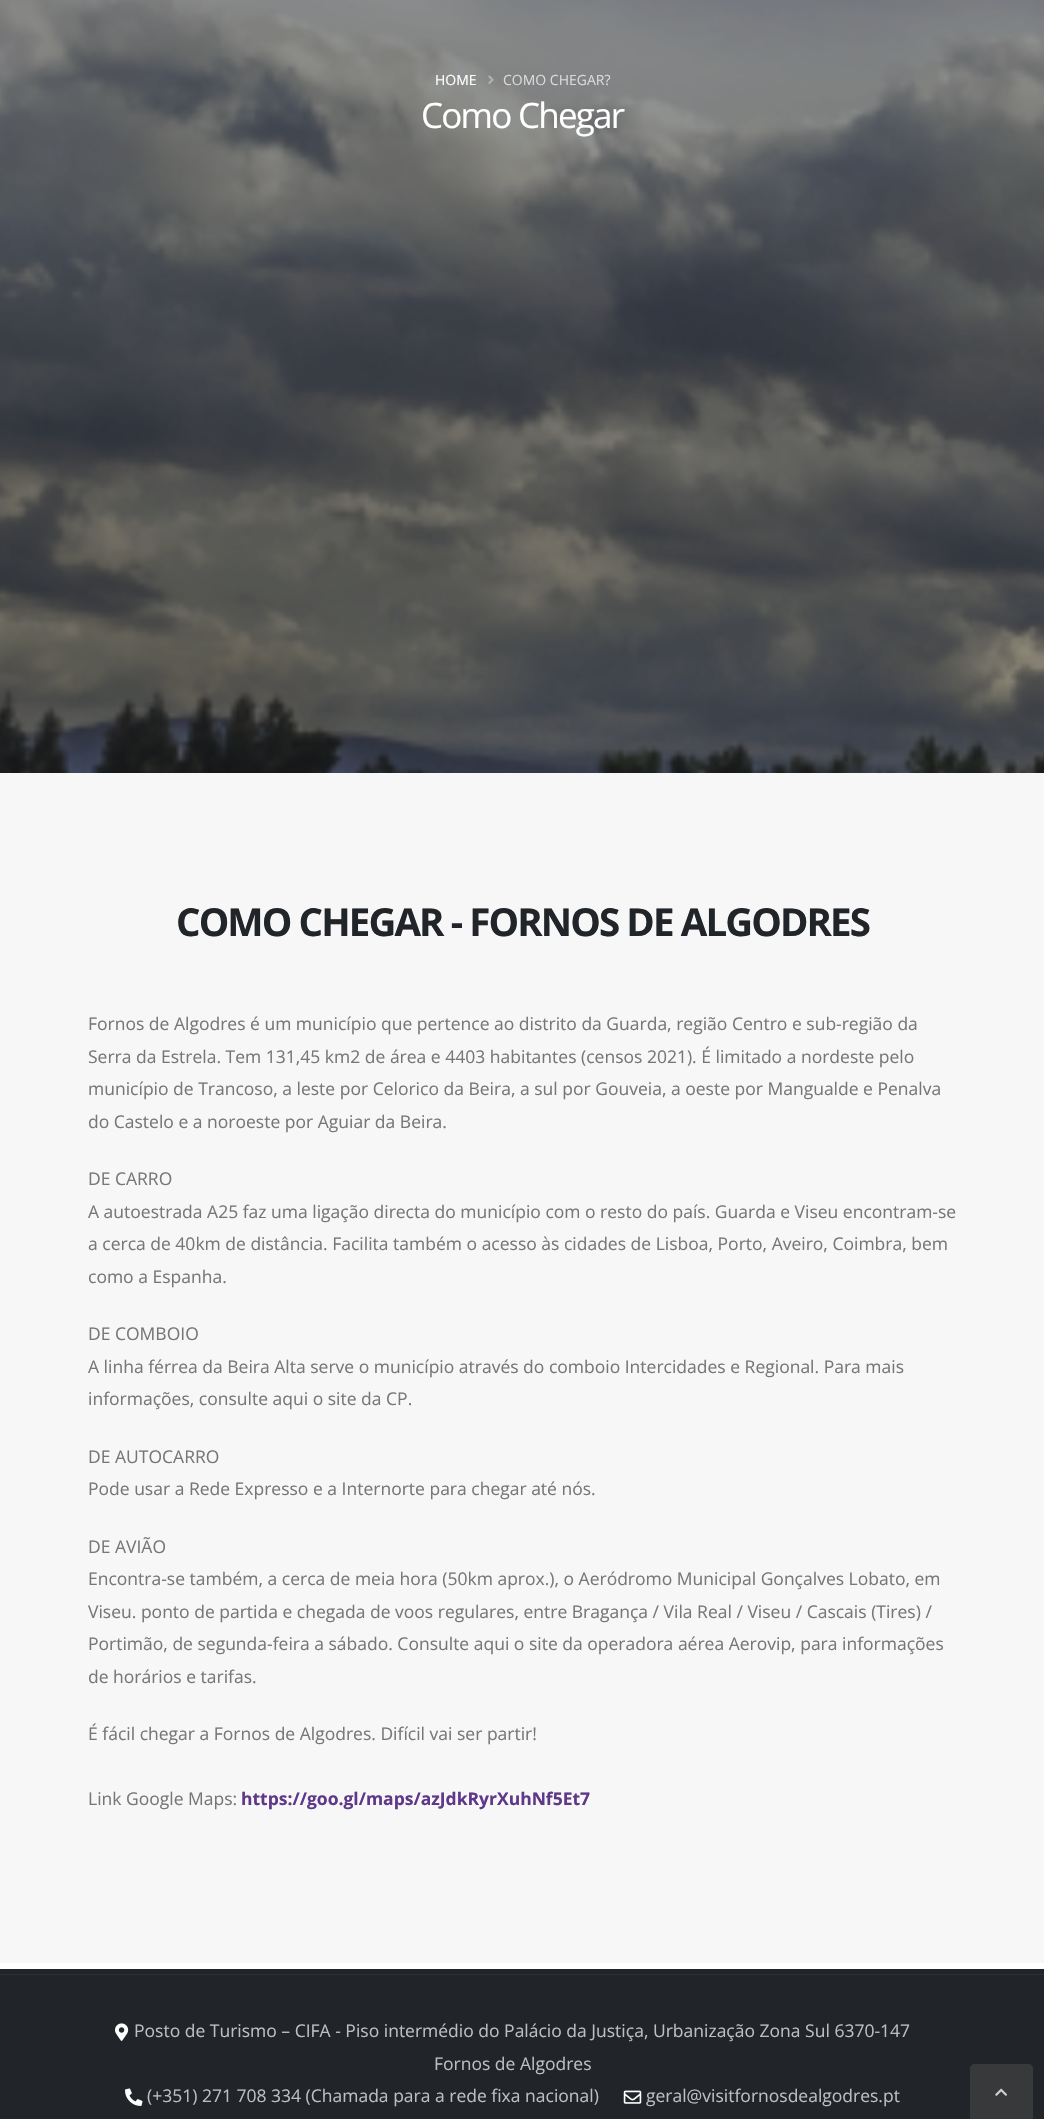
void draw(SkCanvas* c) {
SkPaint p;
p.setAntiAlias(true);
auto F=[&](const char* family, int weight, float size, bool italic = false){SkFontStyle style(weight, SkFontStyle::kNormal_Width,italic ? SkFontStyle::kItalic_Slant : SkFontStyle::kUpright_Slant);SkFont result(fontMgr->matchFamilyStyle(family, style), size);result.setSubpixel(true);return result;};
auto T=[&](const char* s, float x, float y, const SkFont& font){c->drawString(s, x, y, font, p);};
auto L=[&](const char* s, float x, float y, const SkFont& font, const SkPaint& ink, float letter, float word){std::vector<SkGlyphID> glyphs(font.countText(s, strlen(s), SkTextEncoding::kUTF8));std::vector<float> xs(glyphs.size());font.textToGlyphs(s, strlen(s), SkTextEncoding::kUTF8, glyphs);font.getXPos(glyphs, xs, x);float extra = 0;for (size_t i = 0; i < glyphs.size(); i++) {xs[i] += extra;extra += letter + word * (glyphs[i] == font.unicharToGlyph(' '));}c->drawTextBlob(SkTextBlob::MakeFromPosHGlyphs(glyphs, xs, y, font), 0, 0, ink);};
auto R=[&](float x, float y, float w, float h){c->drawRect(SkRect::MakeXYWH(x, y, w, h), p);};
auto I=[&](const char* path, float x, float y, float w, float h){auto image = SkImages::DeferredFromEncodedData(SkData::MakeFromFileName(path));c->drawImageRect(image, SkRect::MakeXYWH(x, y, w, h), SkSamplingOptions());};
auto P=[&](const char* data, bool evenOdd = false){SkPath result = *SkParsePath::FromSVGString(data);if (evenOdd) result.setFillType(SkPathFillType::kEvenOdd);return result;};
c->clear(0xffffffff);
I("1.png",0,0,1044,773);
auto f1 = F("Open Sans",400,14);
p.setColor(0xffffffff);
T("HOME",435,85,f1);
I("2.png",488,75,6,9);
p.setColor(0xffd9dada);
T("COMO CHEGAR?",503,85,f1);
auto f2 = F("Open Sans",400,35);
p.setColor(0xffffffff);
L("Como Chegar",421,128,f2,p,-1.75,0);
p.setColor(0xfff7f7f7);
R(0,773,1044,1190);
auto f3 = F("Open Sans",700,38.5);
p.setColor(0xff212529);
L("COMO CHEGAR - FORNOS DE ALGODRES",176,936,f3,p,-1.9,0);
auto f4 = F("Open Sans",400,17.5);
p.setColor(0xff777777);
T("Fornos de Algodres é um município que pertence ao distrito da Guarda, região Centro e sub-região da",88,1030,f4);
T("Serra da Estrela. Tem 131,45 km2 de área e 4403 habitantes (censos 2021). É limitado a nordeste pelo",88,1063,f4);
T("município de Trancoso, a leste por Celorico da Beira, a sul por Gouveia, a oeste por Mangualde e Penalva",88,1095,f4);
T("do Castelo e a noroeste por Aguiar da Beira.",88,1128,f4);
T("DE CARRO",88,1185,f4);
T("A autoestrada A25 faz uma ligação directa do município com o resto do país. Guarda e Viseu encontram-se",88,1218,f4);
T("a cerca de 40km de distância. Facilita também o acesso às cidades de Lisboa, Porto, Aveiro, Coimbra, bem",88,1250,f4);
T("como a Espanha.",88,1283,f4);
T("DE COMBOIO",88,1340,f4);
T("A linha férrea da Beira Alta serve o município através do comboio Intercidades e Regional. Para mais",88,1373,f4);
T("informações, consulte aqui o site da CP.",88,1405,f4);
T("DE AUTOCARRO",88,1463,f4);
T("Pode usar a Rede Expresso e a Internorte para chegar até nós.",88,1495,f4);
T("DE AVIÃO",88,1553,f4);
T("Encontra-se também, a cerca de meia hora (50km aprox.), o Aeródromo Municipal Gonçalves Lobato, em",88,1585,f4);
T("Viseu. ponto de partida e chegada de voos regulares, entre Bragança / Vila Real / Viseu / Cascais (Tires) /",88,1618,f4);
T("Portimão, de segunda-feira a sábado. Consulte aqui o site da operadora aérea Aerovip, para informações",88,1650,f4);
T("de horários e tarifas.",88,1683,f4);
T("É fácil chegar a Fornos de Algodres. Difícil vai ser partir!",88,1740,f4);
T("Link Google Maps:",88,1805,f4);
auto f5 = F("Open Sans",700,17.5);
p.setColor(0xff603889);
T("https://goo.gl/maps/azJdkRyrXuhNf5Et7",241,1805,f5);
p.setColor(0xff212529);
R(0,1969,1044,150);
p.setColor(0xff2c3034);
R(0,1974,1044,1);
I("3.png",115,2023,14,18);
p.setColor(0xffbcbebf);
T("Posto de Turismo – CIFA - Piso intermédio do Palácio da Justiça, Urbanização Zona Sul 6370-147",134,2037,f4);
T("Fornos de Algodres",434,2070,f4);
I("4.png",125,2088,18,18);
T("(+351) 271 708 334 (Chamada para a rede fixa nacional)",147,2102,f4);
I("5.png",623,2090,19,14);
T("geral@visitfornosdealgodres.pt",646,2102,f4);
p.setColor(0xff38393a);
c->drawPath(P("M975 2064h53c3 0 5 2 5 5v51h-63v-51c0-3 2-5 5-5z"),p);
I("6.png",995,2088,12,8);
}
